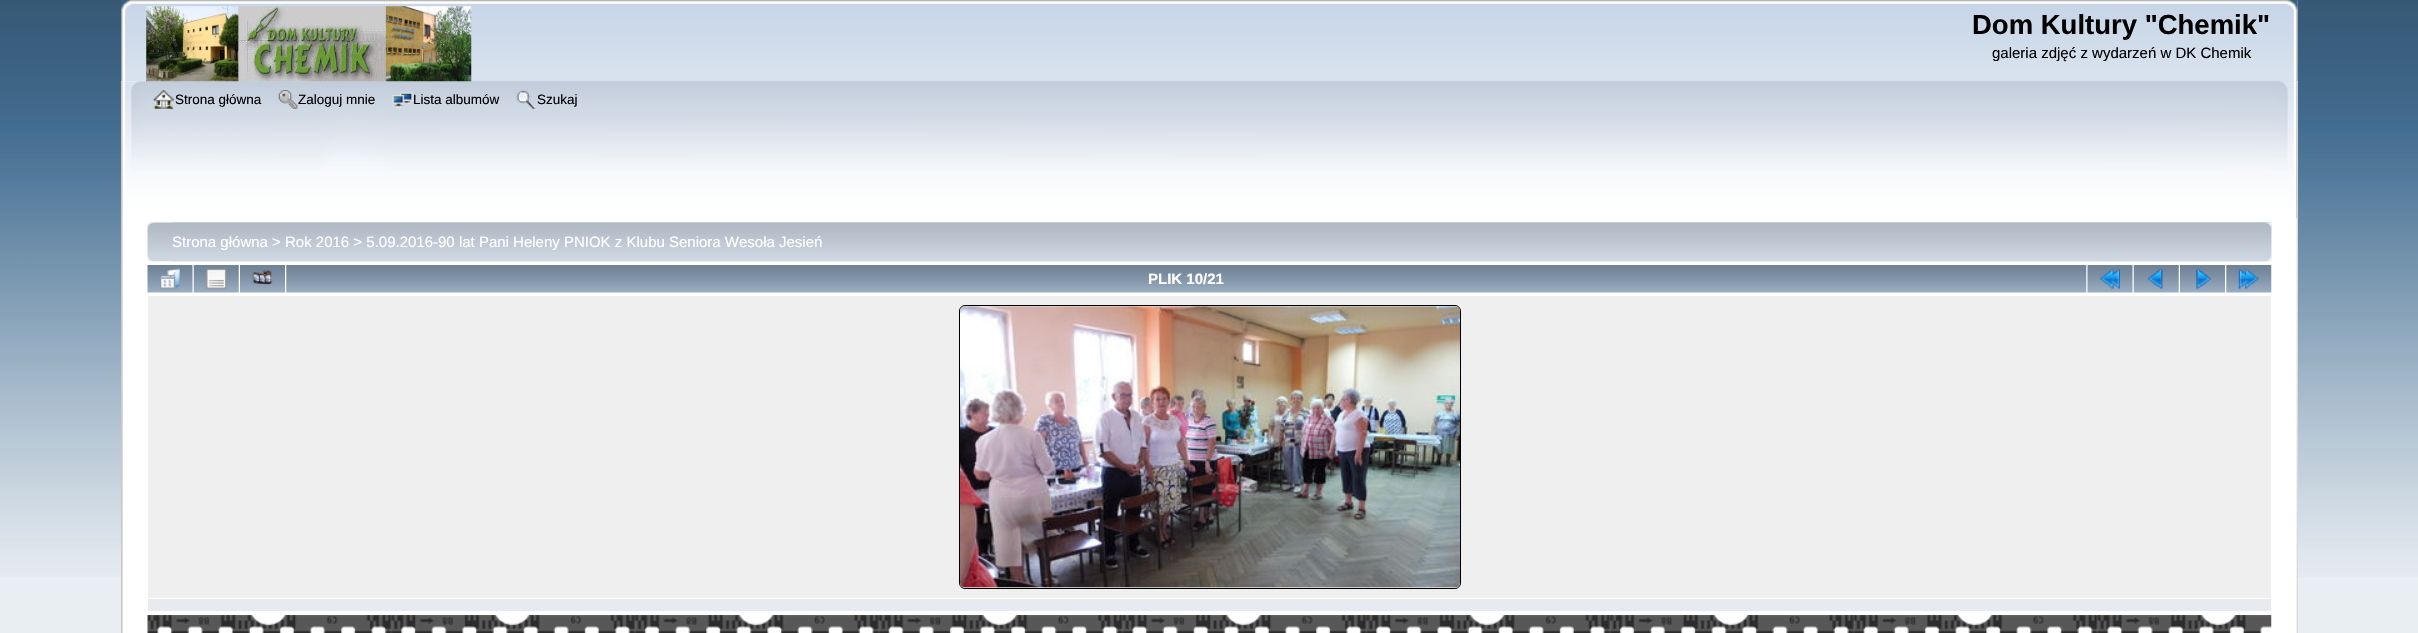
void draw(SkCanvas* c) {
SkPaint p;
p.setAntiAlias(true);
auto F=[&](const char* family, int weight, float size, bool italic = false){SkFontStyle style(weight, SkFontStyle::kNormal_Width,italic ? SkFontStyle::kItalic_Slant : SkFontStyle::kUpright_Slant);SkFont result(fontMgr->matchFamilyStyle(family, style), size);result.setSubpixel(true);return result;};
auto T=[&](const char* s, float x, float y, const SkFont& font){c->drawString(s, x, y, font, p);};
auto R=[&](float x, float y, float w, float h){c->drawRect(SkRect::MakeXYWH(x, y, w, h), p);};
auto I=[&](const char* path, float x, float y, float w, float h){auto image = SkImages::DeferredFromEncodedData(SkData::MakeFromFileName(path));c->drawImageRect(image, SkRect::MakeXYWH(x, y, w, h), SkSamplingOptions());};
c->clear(0xffe9eef2);
I("1.png",0,0,2418,577);
I("2.png",121,0,2177,81);
I("3.png",146,0,2152,81);
p.setColor(0xfffefefe);
R(121,81,2177,138);
I("5.png",121,81,2177,138);
I("6.png",146,81,2152,138);
I("4.png",146,6,326,76);
auto f1 = F("Liberation Sans",700,27.5);
p.setColor(0xff000000);
T("Dom Kultury \"Chemik\"",1972,34,f1);
auto f2 = F("Liberation Sans",400,15);
T("galeria zdjęć z wydarzeń w DK Chemik",1992,58,f2);
I("7.png",153,90,21,20);
auto f3 = F("Liberation Sans",400,13.5);
T("Strona główna",175,104,f3);
I("8.png",278,90,20,19);
T("Zaloguj mnie",298,104,f3);
I("9.png",392,92,21,16);
T("Lista albumów",413,104,f3);
I("10.png",516,90,20,19);
T("Szukaj",537,104,f3);
p.setColor(0xffffffff);
R(121,219,2177,414);
I("11.png",121,218,2176,415);
I("12.png",2296,218,2,415);
I("13.png",147,222,2125,40);
I("14.png",172,222,2100,40);
T("Strona główna > Rok 2016 > 5.09.2016-90 lat Pani Heleny PNIOK z Klubu Seniora Wesoła Jesień",172,247,f2);
I("15.png",147,265,46,28);
I("16.png",160,268,20,21);
I("17.png",193,265,46,28);
I("18.png",206,268,21,21);
I("19.png",240,265,45,28);
I("20.png",252,270,21,15);
I("21.png",286,265,1801,28);
auto f4 = F("Liberation Sans",700,15);
T("PLIK 10/21",1148,284,f4);
I("15.png",2087,265,46,28);
I("22.png",2100,268,20,21);
I("17.png",2133,265,46,28);
I("23.png",2147,268,16,21);
I("19.png",2180,265,45,28);
I("24.png",2196,268,16,21);
I("25.png",2226,265,46,28);
I("26.png",2238,268,21,21);
p.setColor(0xffefefef);
R(148,296,2123,302);
p.setStroke(true);
p.setStrokeWidth(1);
p.setColor(0xff000000);
c->drawRoundRect(SkRect::MakeXYWH(959.5,305.5,501,283),5.5,5.5,p);
I("27.png",960,306,500,282);
p.setStroke(false);
p.setColor(0xffe7eaef);
R(148,599,2123,12);
I("28.png",147,615,2125,18);
}
